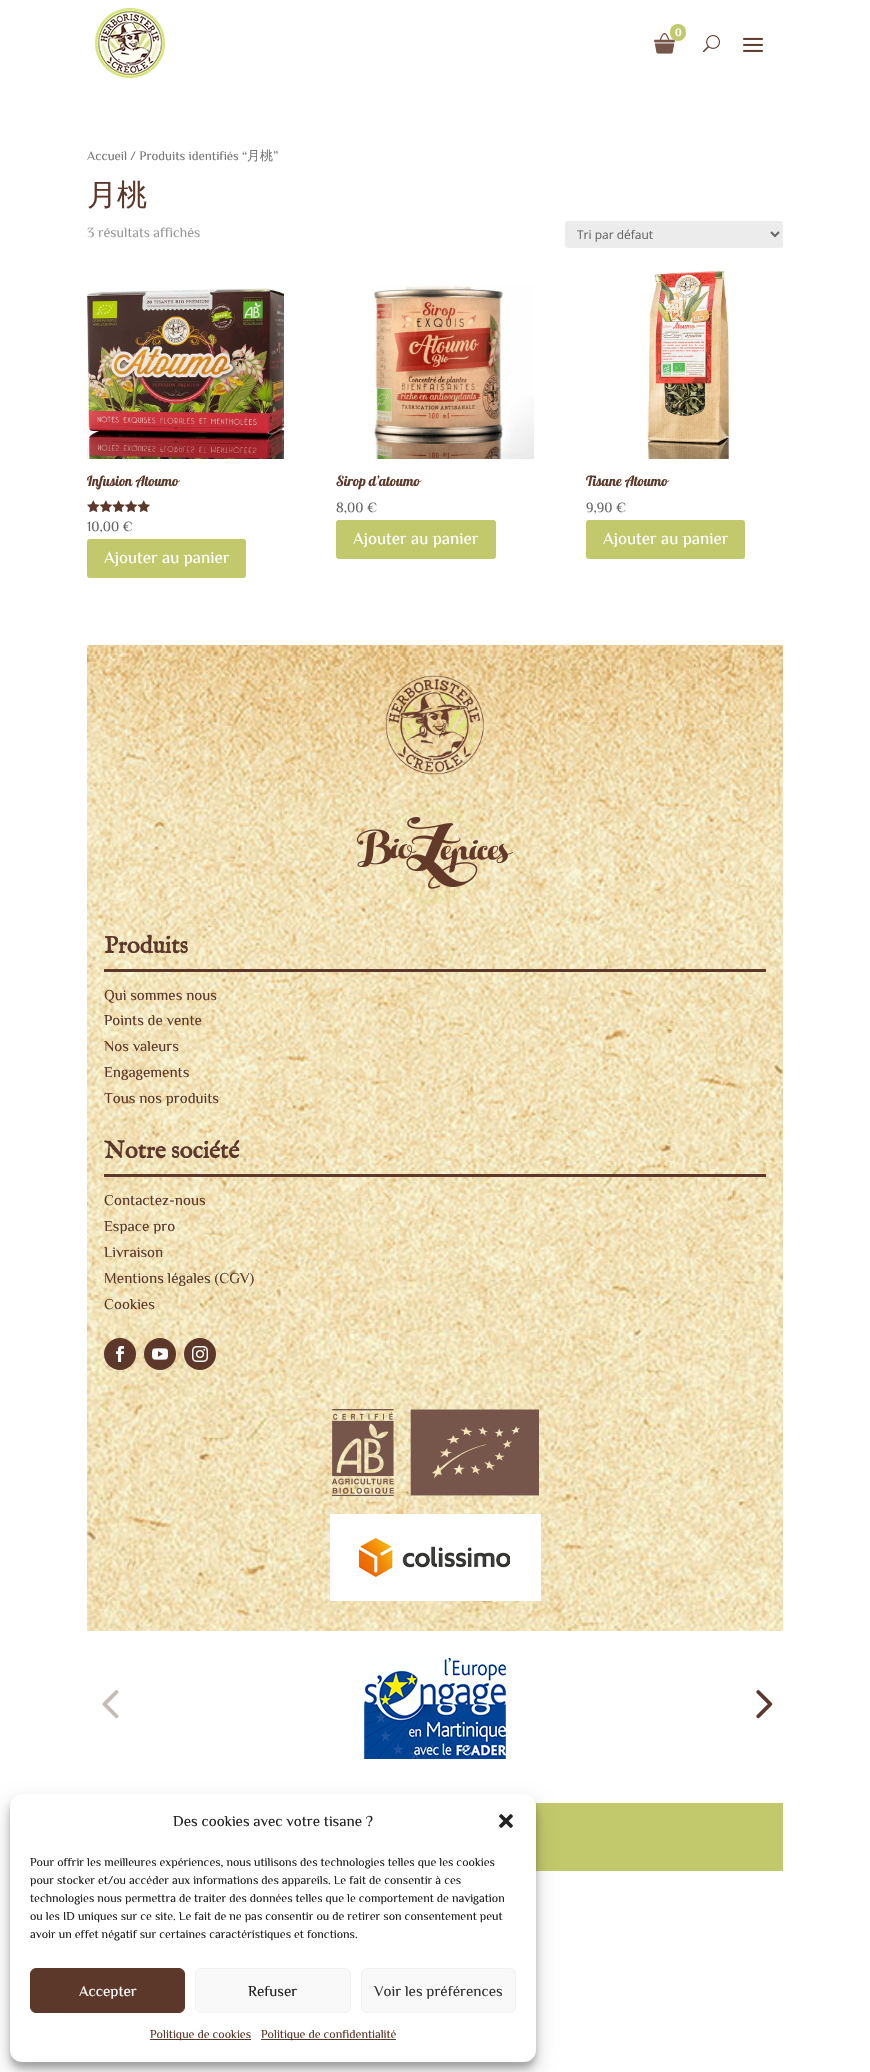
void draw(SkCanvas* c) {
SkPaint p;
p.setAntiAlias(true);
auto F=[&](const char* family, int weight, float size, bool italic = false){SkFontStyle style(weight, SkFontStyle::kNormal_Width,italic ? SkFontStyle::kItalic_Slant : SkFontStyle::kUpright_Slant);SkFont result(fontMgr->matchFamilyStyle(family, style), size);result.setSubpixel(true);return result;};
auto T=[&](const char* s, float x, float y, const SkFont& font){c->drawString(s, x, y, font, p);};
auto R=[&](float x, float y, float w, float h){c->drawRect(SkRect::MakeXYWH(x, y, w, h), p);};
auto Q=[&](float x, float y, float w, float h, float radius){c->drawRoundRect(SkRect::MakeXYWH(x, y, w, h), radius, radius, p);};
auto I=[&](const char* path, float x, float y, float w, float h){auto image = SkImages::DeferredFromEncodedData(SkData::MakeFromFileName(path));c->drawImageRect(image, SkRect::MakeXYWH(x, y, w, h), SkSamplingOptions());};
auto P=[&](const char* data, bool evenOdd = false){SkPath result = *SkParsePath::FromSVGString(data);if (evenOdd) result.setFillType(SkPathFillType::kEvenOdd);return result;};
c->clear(0xffffffff);
I("1.png",95,8,70,70);
I("2.png",654,33,21,21);
p.setColor(0xffc2c96c);
Q(670,24,16,17,8);
auto f1 = F("Philosopher",700,11);
p.setColor(0xffffffff);
T("0",675,36,f1);
I("3.png",703,35,17,18);
I("4.png",743,37,20,15);
auto f2 = F("Philosopher",400,12.9);
p.setColor(0xff767676);
T("Accueil / Produits identifiés “",87,160,f2);
auto f3 = F("WenQuanYi Zen Hei",500,12.9);
T("月桃",247,160,f3);
T("”",273,160,f2);
auto f4 = F("WenQuanYi Zen Hei",500,30);
p.setColor(0xff5c382b);
T("月桃",87,205,f4);
auto f5 = F("Philosopher",400,14);
p.setColor(0xff999999);
T("3 résultats affichés",87,237,f5);
p.setColor(0xffececec);
Q(565,221,218,27,3);
p.setStroke(true);
p.setStrokeWidth(2);
p.setColor(0xff666666);
c->drawPath(P("M771 232l4 4l4-4"),p);
auto f6 = F("Open Sans",400,12);
p.setStroke(false);
T("Tri par défaut",577,239,f6);
I("5.png",87,288,197,171);
auto f7 = F("Pattaya",400,14);
p.setColor(0xff5c382b);
T("Infusion Atoumo",87,486,f7);
I("6.png",87,500,63,12);
I("7.png",87,500,63,12);
p.setColor(0xff666666);
T("10,00 €",87,531,f5);
p.setColor(0xffc2c96c);
Q(87,539,159,39,3);
auto f8 = F("Philosopher",400,17);
p.setColor(0xffffffff);
T("Ajouter au panier",104,563,f8);
I("8.png",373,284,161,175);
p.setColor(0xff5c382b);
T("Sirop d’atoumo",336,486,f7);
p.setColor(0xff666666);
T("8,00 €",336,512,f5);
p.setColor(0xffc2c96c);
Q(336,520,160,39,3);
p.setColor(0xffffffff);
T("Ajouter au panier",353,544,f8);
I("9.png",647,270,83,189);
p.setColor(0xff5c382b);
T("Tisane Atoumo",586,486,f7);
p.setColor(0xff666666);
T("9,90 €",586,512,f5);
p.setColor(0xffc2c96c);
Q(586,520,159,39,3);
p.setColor(0xffffffff);
T("Ajouter au panier",603,544,f8);
I("10.png",87,645,696,986);
I("11.png",385,675,99,100);
I("12.png",357,805,156,99);
auto f9 = F("IM FELL English",700,24);
p.setColor(0xff5c382b);
T("Produits",104,953,f9);
R(104,969,662,3);
auto f10 = F("Philosopher",400,15);
T("Qui sommes nous",104,1000,f10);
T("Points de vente",104,1025,f10);
T("Nos valeurs",104,1051,f10);
T("Engagements",104,1077,f10);
T("Tous nos produits",104,1103,f10);
T("Notre société",104,1158,f9);
R(104,1174,662,3);
T("Contactez-nous",104,1205,f10);
T("Espace pro",104,1231,f10);
T("Livraison",104,1257,f10);
T("Mentions légales (CGV)",104,1283,f10);
T("Cookies",104,1309,f10);
c->drawCircle(120,1354,16,p);
I("13.png",116,1346,8,16);
c->drawCircle(160,1354,16,p);
I("14.png",152,1348,16,12);
c->drawCircle(200,1354,16,p);
I("15.png",192,1346,16,16);
I("16.png",332,1409,207,87);
I("17.png",330,1514,211,87);
I("18.png",102,1690,17,29);
I("19.png",364,1658,142,101);
I("20.png",756,1690,17,29);
p.setColor(0xffc2c96c);
R(535,1803,248,68);
p.setColor(0x3b000000);
p.setMaskFilter(SkMaskFilter::MakeBlur(kNormal_SkBlurStyle, 3));
c->drawRoundRect(SkRect::MakeXYWH(10,1800,526,268),12,12,p);
p.setMaskFilter(nullptr);
p.setColor(0x30000000);
p.setMaskFilter(SkMaskFilter::MakeBlur(kNormal_SkBlurStyle, 10));
c->drawRoundRect(SkRect::MakeXYWH(10,1804,526,268),12,12,p);
p.setMaskFilter(nullptr);
p.setColor(0xffffffff);
Q(10,1794,526,268,12);
p.setColor(0xff222222);
T("Des cookies avec votre tisane ?",173,1826,f10);
I("21.png",499,1814,14,14);
auto f11 = F("Philosopher",400,12);
T("Pour offrir les meilleures expériences, nous utilisons des technologies telles que les cookies",30,1866,f11);
T("pour stocker et/ou accéder aux informations des appareils. Le fait de consentir à ces",30,1884,f11);
T("technologies nous permettra de traiter des données telles que le comportement de navigation",30,1902,f11);
T("ou les ID uniques sur ce site. Le fait de ne pas consentir ou de retirer son consentement peut",30,1920,f11);
T("avoir un effet négatif sur certaines caractéristiques et fonctions.",30,1938,f11);
p.setColor(0xff5c382b);
c->drawRoundRect(SkRect::MakeXYWH(30.5,1968.5,154,44),5.5,5.5,p);
p.setStroke(true);
p.setStrokeWidth(1);
c->drawRoundRect(SkRect::MakeXYWH(30.5,1968.5,154,44),5.5,5.5,p);
p.setStroke(false);
p.setColor(0xffffffff);
T("Accepter",79,1996,f10);
p.setColor(0xfff9f9f9);
c->drawRoundRect(SkRect::MakeXYWH(195.5,1968.5,155,44),5.5,5.5,p);
p.setStroke(true);
p.setColor(0xfff2f2f2);
c->drawRoundRect(SkRect::MakeXYWH(195.5,1968.5,155,44),5.5,5.5,p);
p.setStroke(false);
p.setColor(0xff222222);
T("Refuser",248,1996,f10);
p.setColor(0xfff9f9f9);
c->drawRoundRect(SkRect::MakeXYWH(361.5,1968.5,154,44),5.5,5.5,p);
p.setStroke(true);
p.setColor(0xfff2f2f2);
c->drawRoundRect(SkRect::MakeXYWH(361.5,1968.5,154,44),5.5,5.5,p);
p.setStroke(false);
p.setColor(0xff333333);
T("Voir les préférences",374,1996,f10);
p.setColor(0xff5c382b);
R(150,2039,101,1);
T("Politique de cookies",150,2038,f11);
R(261,2039,135,1);
T("Politique de confidentialité",261,2038,f11);
}
